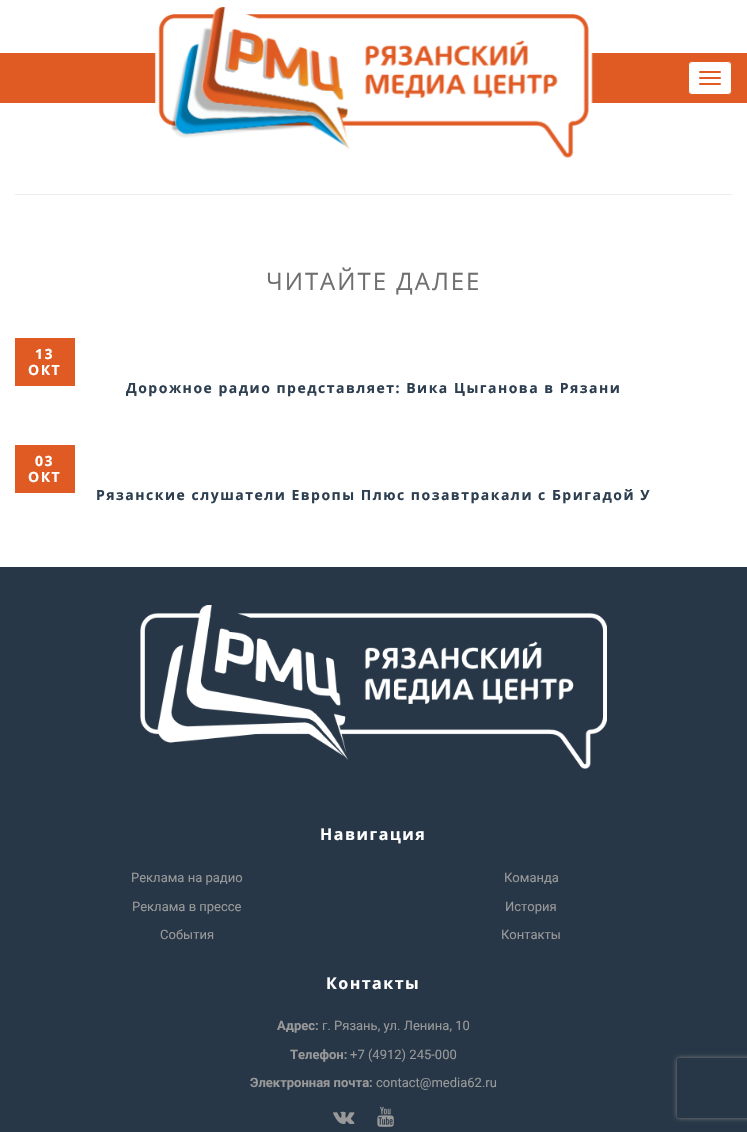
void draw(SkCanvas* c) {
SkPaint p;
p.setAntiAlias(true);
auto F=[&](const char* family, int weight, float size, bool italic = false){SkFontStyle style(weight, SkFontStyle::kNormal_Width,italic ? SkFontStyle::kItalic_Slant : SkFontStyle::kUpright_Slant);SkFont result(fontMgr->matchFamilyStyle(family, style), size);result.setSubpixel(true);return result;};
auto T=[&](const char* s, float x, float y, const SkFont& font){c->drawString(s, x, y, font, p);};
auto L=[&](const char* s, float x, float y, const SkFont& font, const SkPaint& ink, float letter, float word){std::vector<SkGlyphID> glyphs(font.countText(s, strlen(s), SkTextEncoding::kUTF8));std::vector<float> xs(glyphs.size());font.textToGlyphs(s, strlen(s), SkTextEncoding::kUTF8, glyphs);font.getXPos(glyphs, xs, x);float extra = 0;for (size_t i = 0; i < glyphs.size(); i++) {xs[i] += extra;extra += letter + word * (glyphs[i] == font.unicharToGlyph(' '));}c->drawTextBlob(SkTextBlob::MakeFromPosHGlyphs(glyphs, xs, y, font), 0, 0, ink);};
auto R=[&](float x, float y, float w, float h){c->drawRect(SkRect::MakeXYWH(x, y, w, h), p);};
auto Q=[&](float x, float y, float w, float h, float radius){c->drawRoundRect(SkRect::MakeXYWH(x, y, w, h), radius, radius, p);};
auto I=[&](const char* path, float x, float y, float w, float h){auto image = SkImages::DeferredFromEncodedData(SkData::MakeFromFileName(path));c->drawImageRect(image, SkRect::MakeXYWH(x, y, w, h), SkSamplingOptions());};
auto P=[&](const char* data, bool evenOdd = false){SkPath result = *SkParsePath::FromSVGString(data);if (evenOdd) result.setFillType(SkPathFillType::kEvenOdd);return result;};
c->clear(0xffffffff);
p.setColor(0xffe05a24);
R(0,53,747,50);
I("1.png",154,7,439,151);
p.setColor(0xffffffff);
c->drawRoundRect(SkRect::MakeXYWH(688.5,61.5,43,33),3.5,3.5,p);
p.setStroke(true);
p.setStrokeWidth(1);
p.setColor(0xffe05a24);
c->drawRoundRect(SkRect::MakeXYWH(688.5,61.5,43,33),3.5,3.5,p);
p.setStroke(false);
Q(699,71,22,2,1);
Q(699,77,22,2,1);
Q(699,83,22,2,1);
p.setColor(0xffededed);
R(15,194,717,1);
auto f1 = F("Open Sans",400,24);
p.setColor(0xff6f6f6f);
L("ЧИТАЙТЕ ДАЛЕЕ",266,290,f1,p,2,0);
p.setColor(0xffe05a24);
R(15,338,60,48);
auto f2 = F("Open Sans",700,14);
p.setColor(0xffffffff);
L("13",35,359,f2,p,1.5,0);
L("ОКТ",28,375,f2,p,1.5,0);
p.setColor(0xff2c3e50);
L("Дорожное радио представляет: Вика Цыганова в Рязани",126,393,f2,p,1.5,0);
p.setColor(0xffe05a24);
R(15,445,60,48);
p.setColor(0xffffffff);
L("03",35,466,f2,p,1.5,0);
L("ОКТ",28,482,f2,p,1.5,0);
p.setColor(0xff2c3e50);
L("Рязанские слушатели Европы Плюс позавтракали с Бригадой У",96,500,f2,p,1.5,0);
p.setColor(0xff273747);
R(0,567,747,565);
I("2.png",140,605,467,164);
auto f3 = F("Open Sans",700,16);
p.setColor(0xffffffff);
L("Навигация",320,840,f3,p,1.5,0);
auto f4 = F("Roboto",400,13);
p.setColor(0xff999999);
T("Реклама на радио",131,882,f4);
T("Реклама в прессе",132,911,f4);
T("События",160,939,f4);
T("Команда",504,882,f4);
T("История",505,911,f4);
T("Контакты",501,939,f4);
p.setColor(0xffffffff);
L("Контакты",326,989,f3,p,1.5,0);
auto f5 = F("Roboto",700,13);
p.setColor(0xff999999);
T("Адрес:",277,1030,f5);
T("г. Рязань, ул. Ленина, 10",322,1030,f4);
T("Телефон:",290,1059,f5);
T("+7 (4912) 245-000",350,1059,f4);
T("Электронная почта:",250,1087,f5);
T("contact@media62.ru",376,1087,f4);
I("3.png",333,1111,22,13);
I("4.png",377,1106,17,21);
c->save();
c->clipPath(P("M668 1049h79v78h-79zm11 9h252c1 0 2 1 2 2v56c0 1-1 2-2 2h-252c-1 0-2-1-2-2v-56c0-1 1-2 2-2z",true),true);
p.setColor(0xff808080);
p.setMaskFilter(SkMaskFilter::MakeBlur(kNormal_SkBlurStyle, 2.5));
c->drawRoundRect(SkRect::MakeXYWH(677,1058,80,60),2,2,p);
p.setMaskFilter(nullptr);
c->restore();
}
